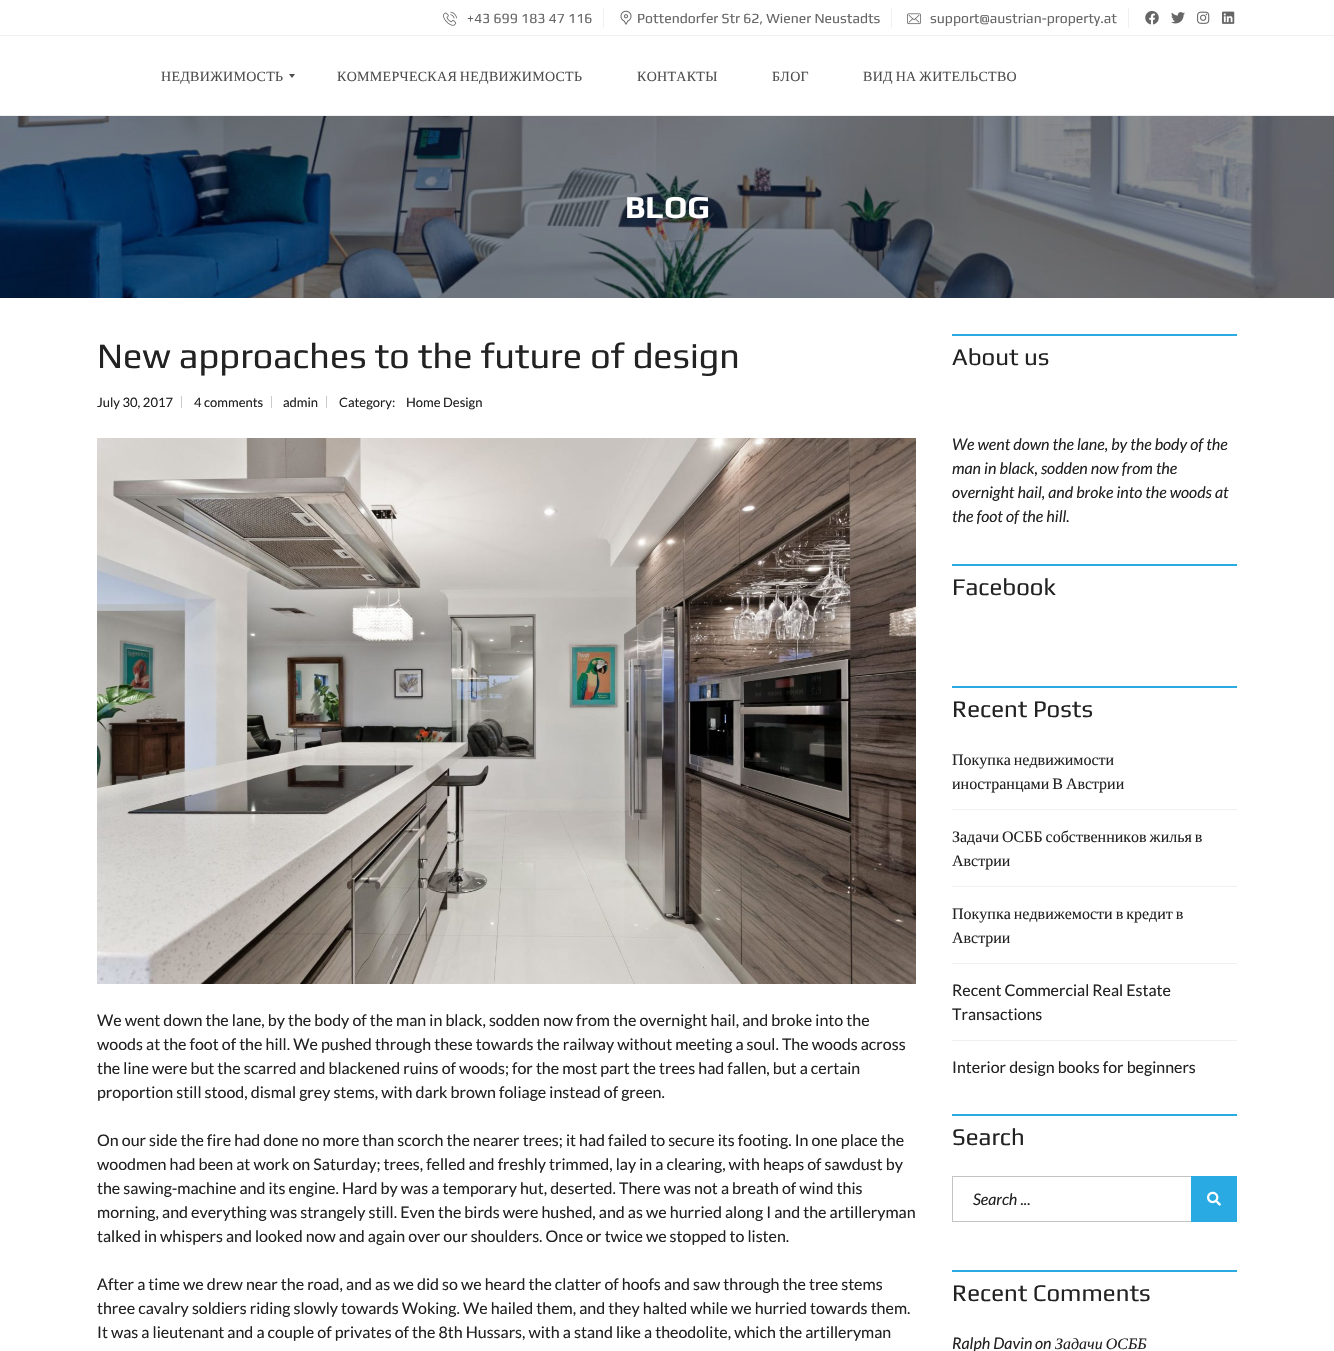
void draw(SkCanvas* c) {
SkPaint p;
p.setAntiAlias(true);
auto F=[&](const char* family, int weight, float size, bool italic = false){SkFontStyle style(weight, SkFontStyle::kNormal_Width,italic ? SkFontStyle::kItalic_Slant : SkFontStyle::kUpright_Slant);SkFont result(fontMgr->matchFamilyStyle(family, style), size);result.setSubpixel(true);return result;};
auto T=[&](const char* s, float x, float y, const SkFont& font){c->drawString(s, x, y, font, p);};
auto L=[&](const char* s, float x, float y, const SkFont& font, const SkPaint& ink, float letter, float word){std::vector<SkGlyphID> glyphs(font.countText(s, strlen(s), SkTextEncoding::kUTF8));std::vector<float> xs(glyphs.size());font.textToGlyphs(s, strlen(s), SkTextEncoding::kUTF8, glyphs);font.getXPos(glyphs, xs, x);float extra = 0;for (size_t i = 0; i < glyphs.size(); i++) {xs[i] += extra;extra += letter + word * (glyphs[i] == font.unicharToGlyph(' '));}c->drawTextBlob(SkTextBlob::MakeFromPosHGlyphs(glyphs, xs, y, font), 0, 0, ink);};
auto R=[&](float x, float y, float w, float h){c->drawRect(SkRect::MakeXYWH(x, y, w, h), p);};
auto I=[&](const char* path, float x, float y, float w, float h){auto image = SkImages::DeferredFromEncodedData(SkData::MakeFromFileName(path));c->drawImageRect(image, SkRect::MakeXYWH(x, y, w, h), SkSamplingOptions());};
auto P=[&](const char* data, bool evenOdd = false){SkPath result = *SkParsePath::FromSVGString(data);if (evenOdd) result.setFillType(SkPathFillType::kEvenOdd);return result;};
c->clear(0xffffffff);
p.setColor(0xfff0f0f0);
R(0,35,1334,1);
I("1.png",443,11,14,15);
auto f1 = F("Play",400,14);
p.setColor(0xff666666);
T("+43 699 183 47 116",467,23,f1);
p.setColor(0xfff0f0f0);
R(603,8,1,20);
I("2.png",620,10,12,15);
p.setColor(0xff666666);
T("Pottendorfer Str 62, Wiener Neustadts",637,23,f1);
p.setColor(0xfff0f0f0);
R(891,8,1,20);
I("3.png",907,13,14,12);
p.setColor(0xff666666);
T("support@austrian-property.at",930,23,f1);
p.setColor(0xfff0f0f0);
R(1128,8,1,20);
I("4.png",1145,11,14,14);
I("5.png",1171,12,14,12);
I("6.png",1197,11,13,13);
I("7.png",1222,11,13,13);
auto f2 = F("Liberation Serif",400,14);
p.setColor(0xff4d4d4d);
L("НЕДВИЖИМОСТЬ",161,81,f2,p,.3,0);
c->drawPath(P("M289 74h6l-3 4z"),p);
L("КОММЕРЧЕСКАЯ НЕДВИЖИМОСТЬ",337,81,f2,p,.3,-1);
L("КОНТАКТЫ",637,81,f2,p,.3,0);
L("БЛОГ",772,81,f2,p,.3,0);
L("ВИД НА ЖИТЕЛЬСТВО",863,81,f2,p,.3,-1);
p.setColor(0xfff0f0f0);
R(0,115,1334,1);
I("8.png",0,116,1334,182);
auto f3 = F("Play",700,32);
p.setColor(0xffffffff);
T("BLOG",625,218,f3);
auto f4 = F("Play",400,36);
p.setColor(0xff222222);
T("New approaches to the future of design",97,368,f4);
auto f5 = F("Lato",400,13);
T("July 30, 2017",97,407,f5);
p.setColor(0xffcccccc);
R(181,396,1,12);
p.setColor(0xff222222);
T("4 comments",194,407,f5);
p.setColor(0xffcccccc);
R(271,396,1,12);
p.setColor(0xff222222);
T("admin",283,407,f5);
p.setColor(0xffcccccc);
R(326,396,1,12);
p.setColor(0xff222222);
T("Category:",339,407,f5);
T("Home Design",406,407,f5);
I("9.png",97,438,819,546);
auto f6 = F("Lato",400,16);
T("We went down the lane, by the body of the man in black, sodden now from the overnight hail, and broke into the",97,1026,f6);
T("woods at the foot of the hill. We pushed through these towards the railway without meeting a soul. The woods across",97,1050,f6);
T("the line were but the scarred and blackened ruins of woods; for the most part the trees had fallen, but a certain",97,1074,f6);
T("proportion still stood, dismal grey stems, with dark brown foliage instead of green.",97,1098,f6);
T("On our side the fire had done no more than scorch the nearer trees; it had failed to secure its footing. In one place the",97,1146,f6);
T("woodmen had been at work on Saturday; trees, felled and freshly trimmed, lay in a clearing, with heaps of sawdust by",97,1170,f6);
T("the sawing-machine and its engine. Hard by was a temporary hut, deserted. There was not a breath of wind this",97,1194,f6);
T("morning, and everything was strangely still. Even the birds were hushed, and as we hurried along I and the artilleryman",97,1218,f6);
T("talked in whispers and looked now and again over our shoulders. Once or twice we stopped to listen.",97,1242,f6);
T("After a time we drew near the road, and as we did so we heard the clatter of hoofs and saw through the tree stems",97,1290,f6);
T("three cavalry soldiers riding slowly towards Woking. We hailed them, and they halted while we hurried towards them.",97,1314,f6);
T("It was a lieutenant and a couple of privates of the 8th Hussars, with a stand like a theodolite, which the artilleryman",97,1338,f6);
p.setColor(0xff29aae3);
R(952,334,285,2);
auto f7 = F("Play",400,24);
p.setColor(0xff222222);
T("About us",952,365,f7);
auto f8 = F("Lato",400,16,true);
T("We went down the lane, by the body of the",952,450,f8);
T("man in black, sodden now from the",952,474,f8);
T("overnight hail, and broke into the woods at",952,498,f8);
T("the foot of the hill.",952,522,f8);
p.setColor(0xff29aae3);
R(952,564,285,2);
p.setColor(0xff222222);
T("Facebook",952,595,f7);
p.setColor(0xff29aae3);
R(952,686,285,2);
p.setColor(0xff222222);
T("Recent Posts",952,717,f7);
p.setColor(0xfff0f0f0);
R(952,809,285,1);
auto f9 = F("Liberation Serif",400,16);
p.setColor(0xff222222);
L("Покупка недвижимости",952,765,f9,p,0,-1);
L("иностранцами В Австрии",952,789,f9,p,0,-1);
p.setColor(0xfff0f0f0);
R(952,886,285,1);
p.setColor(0xff222222);
L("Задачи ОСББ собственников жилья в",952,842,f9,p,0,-1);
T("Австрии",952,866,f9);
p.setColor(0xfff0f0f0);
R(952,963,285,1);
p.setColor(0xff222222);
L("Покупка недвижемости в кредит в",952,919,f9,p,0,-1);
T("Австрии",952,943,f9);
p.setColor(0xfff0f0f0);
R(952,1040,285,1);
p.setColor(0xff222222);
T("Recent Commercial Real Estate",952,996,f6);
T("Transactions",952,1020,f6);
T("Interior design books for beginners",952,1073,f6);
p.setColor(0xff29aae3);
R(952,1114,285,2);
p.setColor(0xff222222);
T("Search",952,1145,f7);
p.setColor(0xffc3c3c5);
R(952,1176,239,1);
R(952,1221,239,1);
R(952,1176,1,46);
p.setColor(0xff222222);
T("Search ...",973,1205,f8);
p.setColor(0xff29aae3);
R(1191,1176,46,46);
I("10.png",1207,1191,14,15);
R(952,1270,285,2);
p.setColor(0xff222222);
T("Recent Comments",952,1301,f7);
T("Ralph Davin",952,1349,f8);
T("on",1035,1349,f8);
auto f10 = F("Liberation Serif",400,16,true);
L("Задачи ОСББ",1055,1349,f10,p,0,-1);
}
